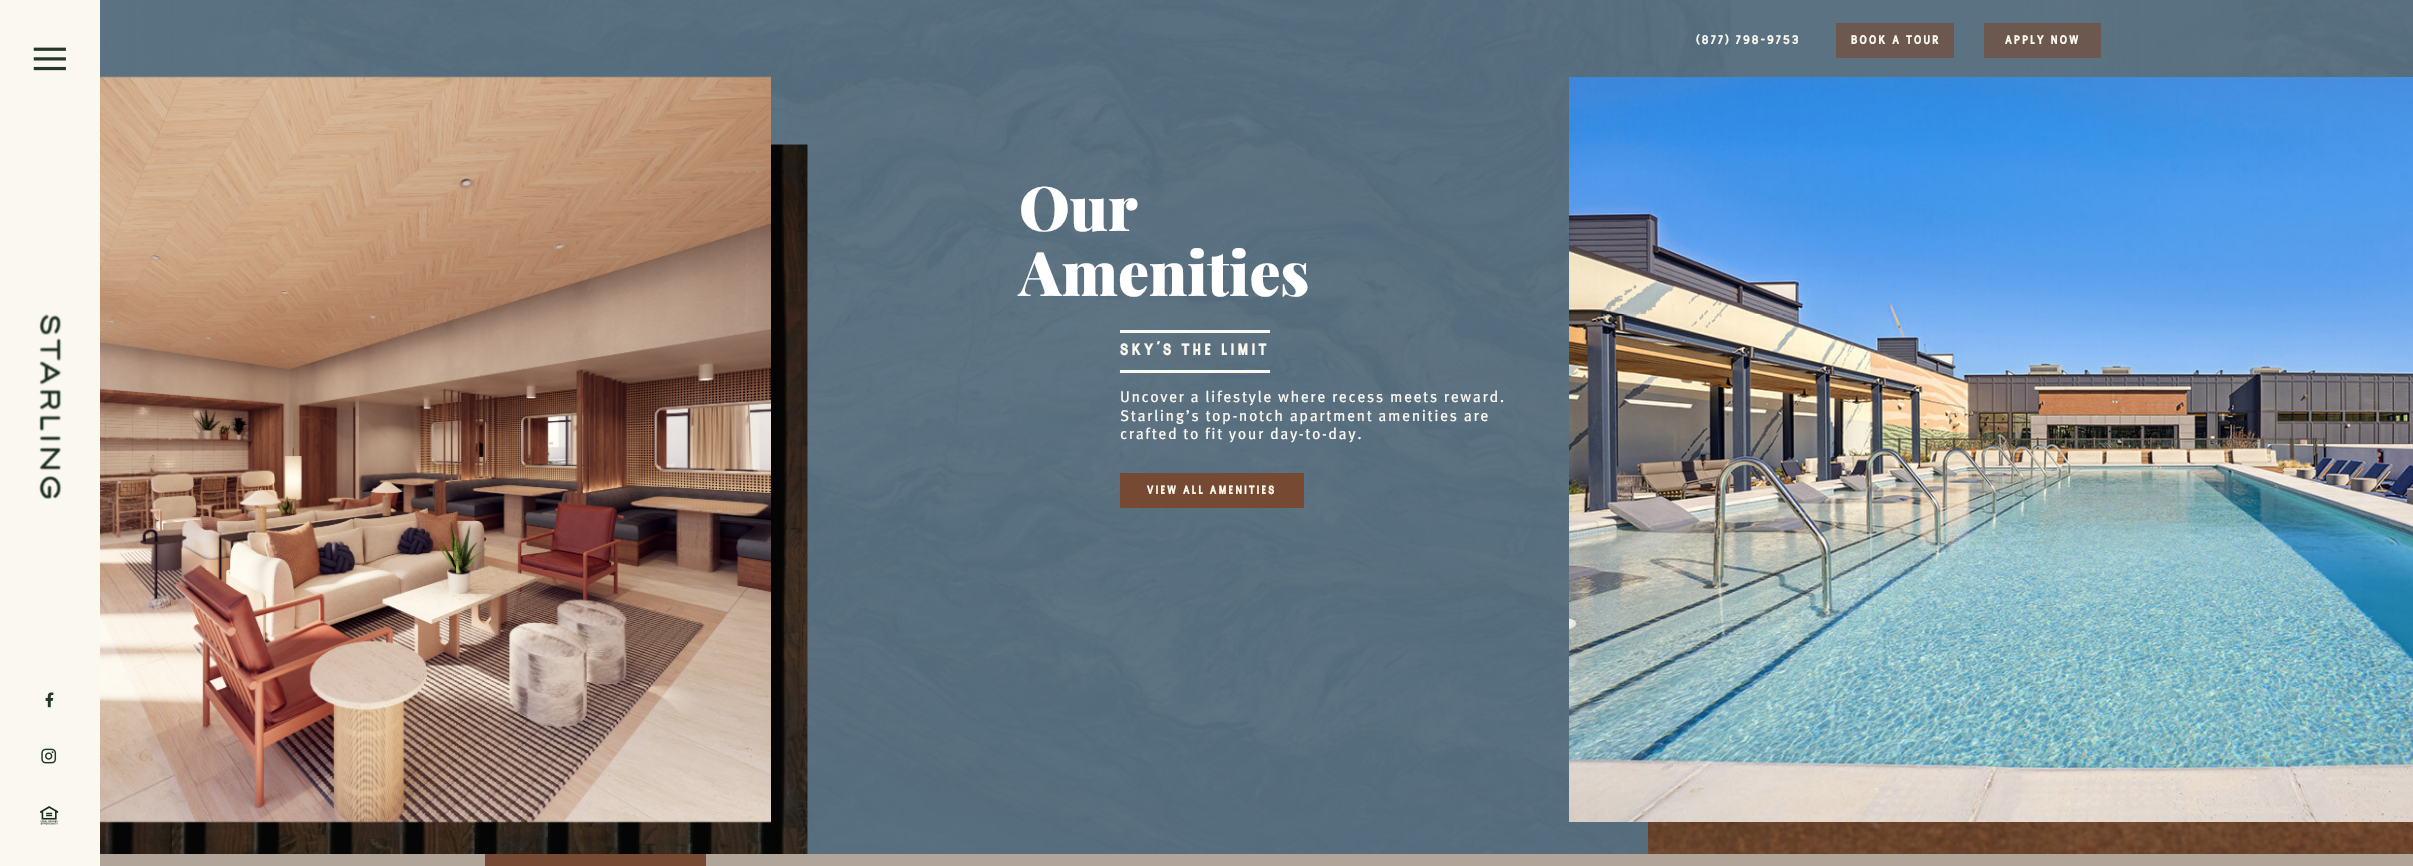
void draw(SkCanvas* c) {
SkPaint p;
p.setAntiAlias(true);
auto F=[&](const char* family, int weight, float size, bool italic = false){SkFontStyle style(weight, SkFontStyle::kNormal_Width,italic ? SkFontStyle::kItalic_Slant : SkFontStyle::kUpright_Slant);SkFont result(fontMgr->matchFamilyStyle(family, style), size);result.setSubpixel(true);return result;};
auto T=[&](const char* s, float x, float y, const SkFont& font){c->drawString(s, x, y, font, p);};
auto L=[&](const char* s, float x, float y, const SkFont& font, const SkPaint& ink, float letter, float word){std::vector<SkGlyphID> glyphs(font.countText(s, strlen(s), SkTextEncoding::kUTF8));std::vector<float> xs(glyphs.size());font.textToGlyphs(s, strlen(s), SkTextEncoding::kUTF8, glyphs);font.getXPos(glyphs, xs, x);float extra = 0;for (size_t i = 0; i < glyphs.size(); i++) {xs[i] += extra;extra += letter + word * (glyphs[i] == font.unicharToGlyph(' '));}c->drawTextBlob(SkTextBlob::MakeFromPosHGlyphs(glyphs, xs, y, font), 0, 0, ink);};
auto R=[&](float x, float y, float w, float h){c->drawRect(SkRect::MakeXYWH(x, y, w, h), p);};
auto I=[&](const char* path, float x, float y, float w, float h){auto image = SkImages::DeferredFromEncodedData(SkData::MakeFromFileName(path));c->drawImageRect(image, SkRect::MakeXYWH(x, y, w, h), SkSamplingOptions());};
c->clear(0xff5b7282);
p.setColor(0xfffbf8ef);
R(0,0,100,866);
I("1.png",33,47,33,24);
I("2.png",39,314,23,185);
I("3.png",45,692,9,16);
I("4.png",41,748,16,16);
I("5.png",40,806,19,19);
I("6.png",100,0,1631,854);
auto f1 = F("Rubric",400,12.5);
L("(877) 798-9753",1696,44,f1,p,2.25,0);
p.setColor(0xff6c584f);
R(1836,23,118,35);
p.setColor(0xfffbf8ef);
L("BOOK A TOUR",1851,44,f1,p,2.25,0);
I("7.png",2016,0,397,77);
{
const SkColor colors[] = {0xff5b7282,0x005b7282};
const float stops[] = {0,1};
const SkPoint ends[] = {{2004,433}, {2371,433}};
p.setShader(SkGradientShader::MakeLinear(ends, colors, stops, 2, SkTileMode::kClamp));
p.setAlpha(255);
}
R(2016,0,227,77);
p.setShader(nullptr);
p.setColor(0xff6c584f);
R(1984,23,117,35);
p.setColor(0xfffbf8ef);
L("APPLY NOW",2005,44,f1,p,2.25,0);
{
const SkColor colors[] = {0xff5b7282,0x005b7282};
const float stops[] = {0,1};
const SkPoint ends[] = {{39,433}, {406,433}};
p.setShader(SkGradientShader::MakeLinear(ends, colors, stops, 2, SkTileMode::kClamp));
p.setAlpha(255);
}
R(100,0,191,78);
I("9.png",100,144,708,710);
I("8.png",100,76,671,747);
auto f2 = F("Playfair Display",900,61.5);
p.setShader(nullptr);
p.setColor(0xffffffff);
T("Our",1019,231,f2);
T("Amenities",1019,296,f2);
p.setColor(0xfffbf8ef);
R(1120,330,150,3);
R(1120,370,150,3);
auto f3 = F("Rubric",400,16.5);
L("SKY’S THE LIMIT",1120,355,f3,p,3.6,0);
auto f4 = F("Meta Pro",400,15.5);
L("Uncover a lifestyle where recess meets reward.",1120,402,f4,p,1.55,0);
L("Starling’s top-notch apartment amenities are",1120,421,f4,p,1.55,0);
L("crafted to fit your day-to-day.",1120,439,f4,p,1.55,0);
p.setColor(0xff764932);
R(1120,473,184,35);
auto f5 = F("Rubric",400,12.1);
p.setColor(0xfffbf8ef);
L("VIEW ALL AMENITIES",1147,494,f5,p,2.25,0);
I("10.png",1569,77,844,745);
I("11.png",1648,822,765,32);
p.setColor(0xffb1a498);
R(100,854,2313,12);
p.setColor(0xff764932);
R(485,854,221,12);
}
